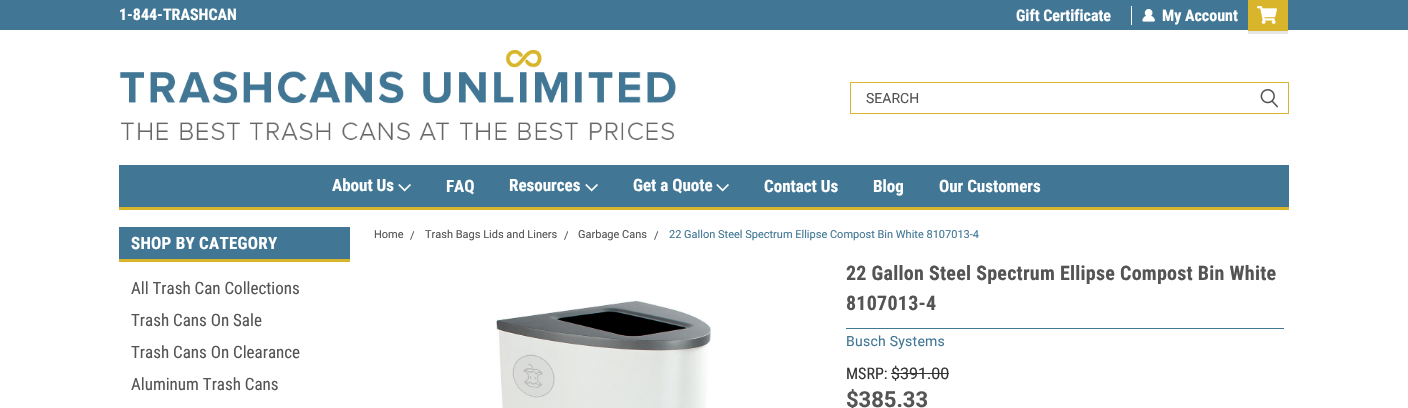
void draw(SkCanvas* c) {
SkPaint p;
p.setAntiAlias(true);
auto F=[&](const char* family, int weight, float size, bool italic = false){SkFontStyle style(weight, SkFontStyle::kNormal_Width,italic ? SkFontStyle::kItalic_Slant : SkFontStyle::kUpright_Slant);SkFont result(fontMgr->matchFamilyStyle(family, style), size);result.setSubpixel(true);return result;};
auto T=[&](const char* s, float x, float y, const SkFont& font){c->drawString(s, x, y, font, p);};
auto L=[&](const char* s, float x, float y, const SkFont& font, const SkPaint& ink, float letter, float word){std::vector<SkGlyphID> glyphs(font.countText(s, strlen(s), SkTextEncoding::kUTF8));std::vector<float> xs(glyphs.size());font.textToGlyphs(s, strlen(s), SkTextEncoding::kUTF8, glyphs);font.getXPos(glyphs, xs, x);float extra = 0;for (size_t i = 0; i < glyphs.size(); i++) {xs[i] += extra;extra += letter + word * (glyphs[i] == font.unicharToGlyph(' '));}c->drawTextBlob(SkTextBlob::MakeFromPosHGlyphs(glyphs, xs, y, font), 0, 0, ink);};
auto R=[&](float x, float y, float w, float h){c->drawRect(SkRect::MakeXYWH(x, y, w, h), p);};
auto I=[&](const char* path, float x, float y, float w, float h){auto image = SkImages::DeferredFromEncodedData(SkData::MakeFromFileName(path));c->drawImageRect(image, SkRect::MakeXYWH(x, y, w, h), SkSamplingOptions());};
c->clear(0xffffffff);
p.setColor(0xff417795);
R(0,0,1408,30);
auto f1 = F("Roboto Condensed",700,16);
p.setColor(0xffffffff);
T("1-844-TRASHCAN",119,20,f1);
R(1131,6,1,19);
T("Gift Certificate",1016,21,f1);
I("1.png",1142,9,13,13);
T("My Account",1162,21,f1);
p.setColor(0xffd8b52b);
R(1248,0,40,31);
p.setColor(0xffe5e5e5);
R(1248,31,40,3);
I("2.png",1257,6,20,18);
I("3.png",119,50,557,90);
p.setStroke(true);
p.setStrokeWidth(1);
p.setColor(0xffd8b52b);
c->drawRect(SkRect::MakeXYWH(850.5,82.5,438,31),p);
auto f2 = F("Roboto",400,14);
p.setStroke(false);
p.setColor(0xff545454);
T("SEARCH",866,103,f2);
I("4.png",1260,89,18,19);
p.setColor(0xff417795);
R(119,165,1170,42);
p.setColor(0xffd8b52b);
R(119,207,1170,3);
auto f3 = F("Roboto Condensed",700,17);
p.setColor(0xffffffff);
T("About Us",332,191,f3);
I("5.png",398,184,13,8);
T("FAQ",446,192,f3);
T("Resources",509,191,f3);
I("5.png",585,184,13,8);
T("Get a Quote",633,191,f3);
I("5.png",716,184,13,8);
T("Contact Us",764,192,f3);
T("Blog",873,192,f3);
T("Our Customers",939,192,f3);
p.setColor(0xff417795);
R(119,227,231,32);
p.setColor(0xffd8b52b);
R(119,259,231,3);
p.setColor(0xffffffff);
L("SHOP BY CATEGORY",131,249,f3,p,.25,0);
auto f4 = F("Roboto Condensed",400,17);
p.setColor(0xff545454);
T("All Trash Can Collections",131,294,f4);
T("Trash Cans On Sale",131,326,f4);
T("Trash Cans On Clearance",131,358,f4);
T("Aluminum Trash Cans",131,390,f4);
auto f5 = F("Roboto",400,11);
T("Home",374,238,f5);
T("/",410,239,f5);
T("Trash Bags Lids and Liners",425,238,f5);
T("/",564,239,f5);
T("Garbage Cans",578,238,f5);
T("/",654,239,f5);
p.setColor(0xff417795);
T("22 Gallon Steel Spectrum Ellipse Compost Bin White 8107013-4",669,238,f5);
I("6.png",496,300,215,108);
R(846,328,438,1);
auto f6 = F("Roboto Condensed",700,20);
p.setColor(0xff545454);
L("22 Gallon Steel Spectrum Ellipse Compost Bin White",846,280,f6,p,.25,0);
L("8107013-4",846,310,f6,p,.25,0);
p.setColor(0xff417795);
L("Busch Systems",846,346,f2,p,.25,0);
auto f7 = F("Roboto Condensed",400,16);
p.setColor(0xff343434);
T("MSRP:",846,379,f7);
auto f8 = F("Roboto",400,16);
T("$391.00",891,379,f8);
R(891,373,58,1);
auto f9 = F("Roboto",700,22);
p.setColor(0xff545454);
T("$385.33",846,407,f9);
}
